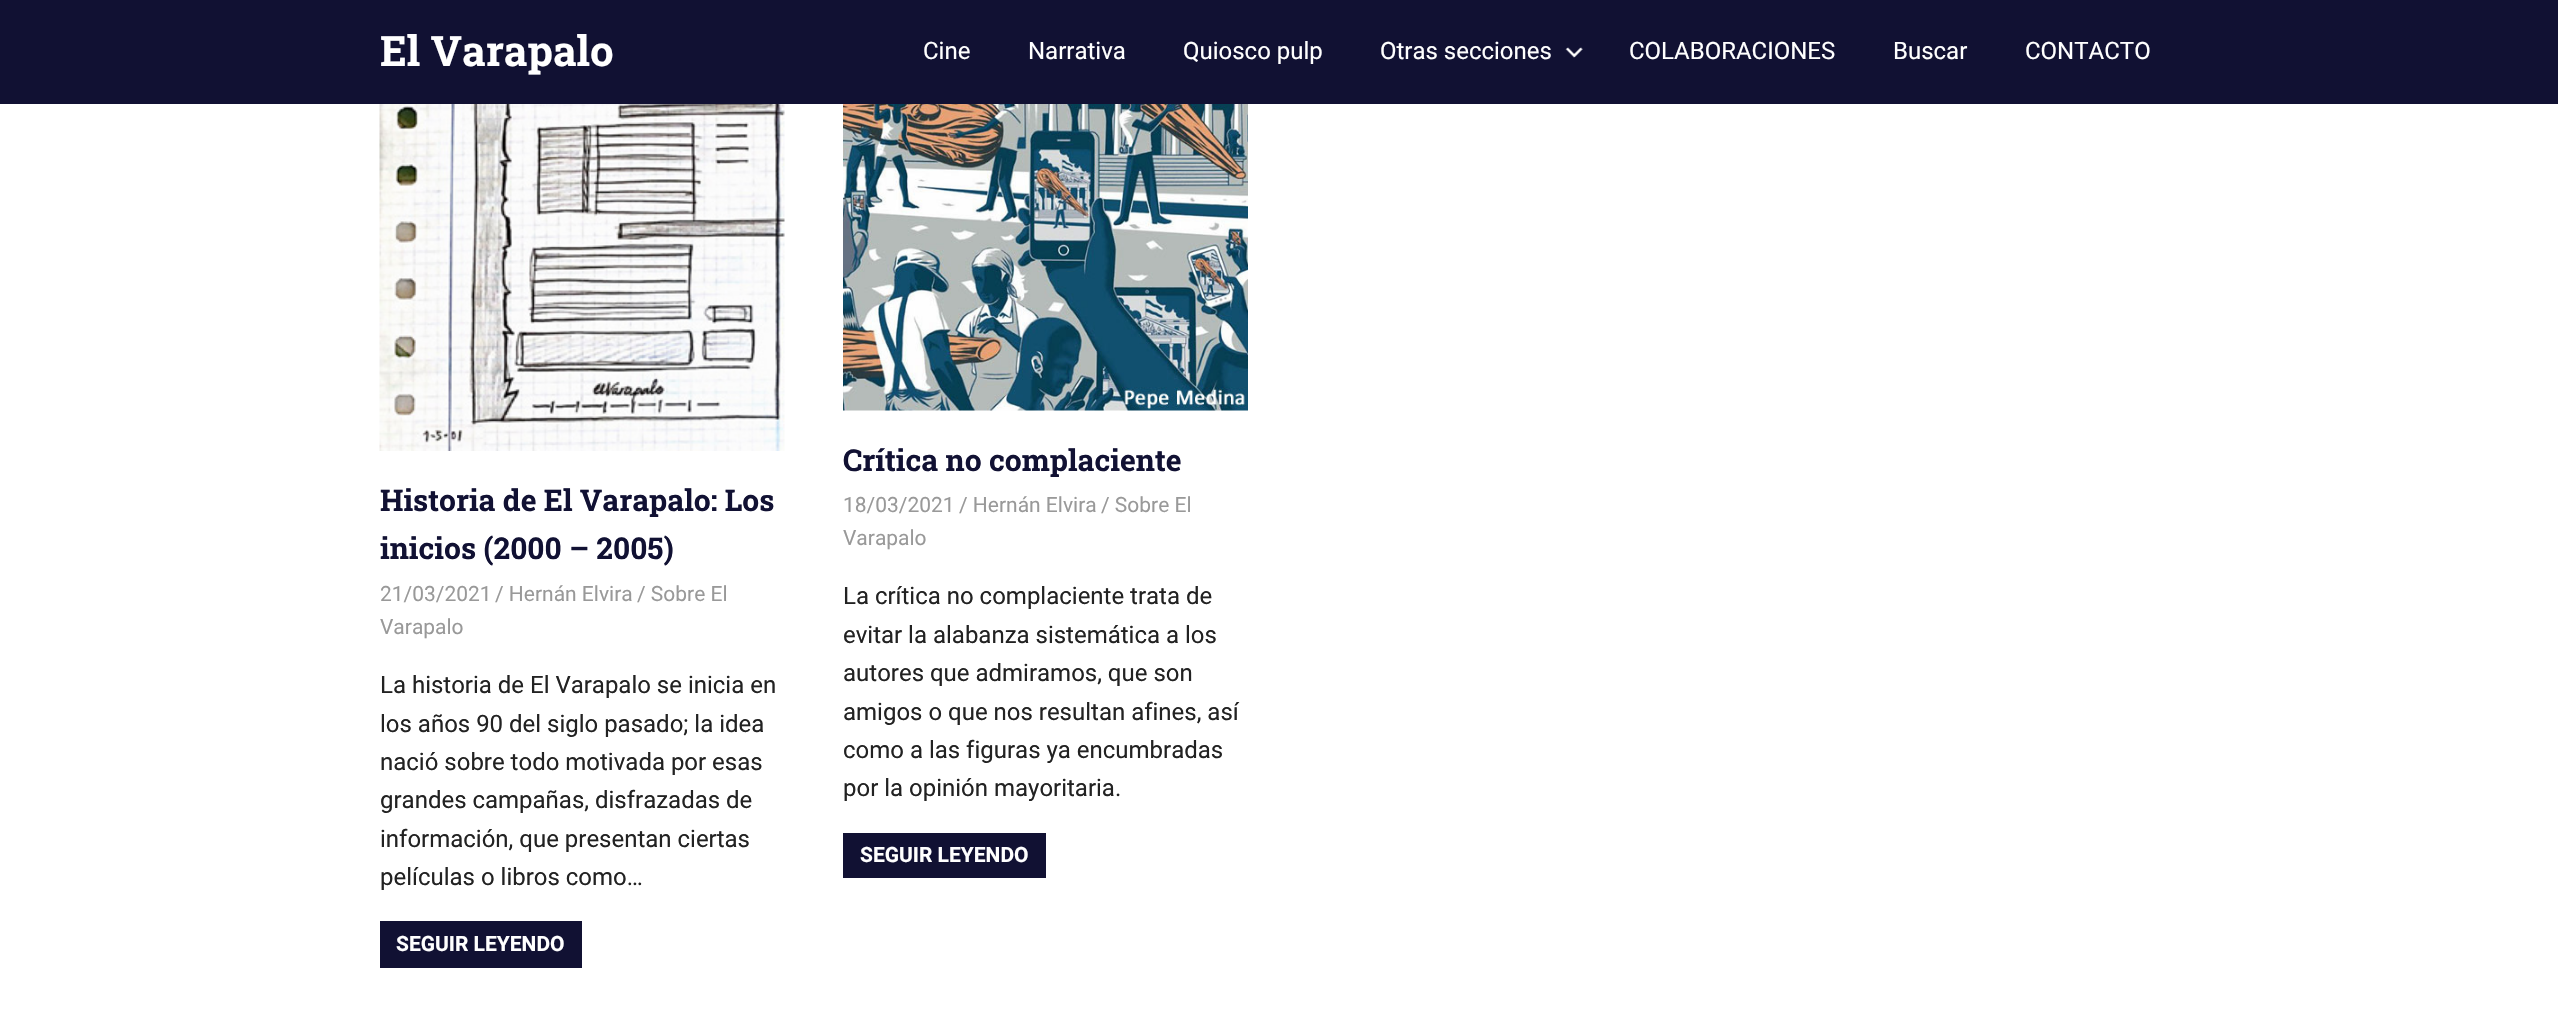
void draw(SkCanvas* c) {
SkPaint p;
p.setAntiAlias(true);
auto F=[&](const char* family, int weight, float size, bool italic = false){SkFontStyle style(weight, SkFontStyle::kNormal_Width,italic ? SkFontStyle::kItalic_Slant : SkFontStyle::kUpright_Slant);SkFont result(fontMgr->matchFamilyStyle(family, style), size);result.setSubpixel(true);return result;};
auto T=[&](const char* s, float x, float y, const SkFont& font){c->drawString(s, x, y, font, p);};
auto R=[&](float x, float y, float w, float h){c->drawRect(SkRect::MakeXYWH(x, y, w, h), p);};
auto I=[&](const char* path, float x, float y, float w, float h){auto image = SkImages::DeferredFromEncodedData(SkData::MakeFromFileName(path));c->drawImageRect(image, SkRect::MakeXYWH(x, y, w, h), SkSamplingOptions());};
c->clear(0xffffffff);
p.setColor(0xff111133);
R(0,0,2558,104);
auto f1 = F("Roboto Slab",700,42);
p.setColor(0xffffffff);
T("El Varapalo",380,66,f1);
auto f2 = F("Roboto",400,24);
T("Cine",923,59,f2);
T("Narrativa",1028,59,f2);
T("Quiosco pulp",1183,59,f2);
T("Otras secciones",1380,59,f2);
I("1.png",1565,47,18,11);
T("COLABORACIONES",1629,59,f2);
T("Buscar",1893,59,f2);
T("CONTACTO",2025,59,f2);
I("2.png",379,104,406,347);
auto f3 = F("Roboto Slab",700,30);
p.setColor(0xff111133);
T("Historia de El Varapalo: Los",380,511,f3);
T("inicios (2000 – 2005)",380,559,f3);
auto f4 = F("Roboto",400,21);
p.setColor(0xff999999);
T("21/03/2021",380,601,f4);
T("/ Hernán Elvira",495,601,f4);
T("/ Sobre El",637,601,f4);
T("Varapalo",380,634,f4);
p.setColor(0xff222222);
T("La historia de El Varapalo se inicia en",380,693,f2);
T("los años 90 del siglo pasado; la idea",380,732,f2);
T("nació sobre todo motivada por esas",380,770,f2);
T("grandes campañas, disfrazadas de",380,808,f2);
T("información, que presentan ciertas",380,847,f2);
T("películas o libros como…",380,885,f2);
p.setColor(0xff111133);
R(380,921,202,47);
auto f5 = F("Roboto",700,21);
p.setColor(0xffffffff);
T("SEGUIR LEYENDO",396,951,f5);
I("3.png",843,104,405,307);
p.setColor(0xff111133);
T("Crítica no complaciente",843,471,f3);
p.setColor(0xff999999);
T("18/03/2021",843,512,f4);
T("/ Hernán Elvira",959,512,f4);
T("/ Sobre El",1101,512,f4);
T("Varapalo",843,545,f4);
p.setColor(0xff222222);
T("La crítica no complaciente trata de",843,604,f2);
T("evitar la alabanza sistemática a los",843,643,f2);
T("autores que admiramos, que son",843,681,f2);
T("amigos o que nos resultan afines, así",843,720,f2);
T("como a las figuras ya encumbradas",843,758,f2);
T("por la opinión mayoritaria.",843,796,f2);
p.setColor(0xff111133);
R(843,833,203,45);
p.setColor(0xffffffff);
T("SEGUIR LEYENDO",860,862,f5);
}
